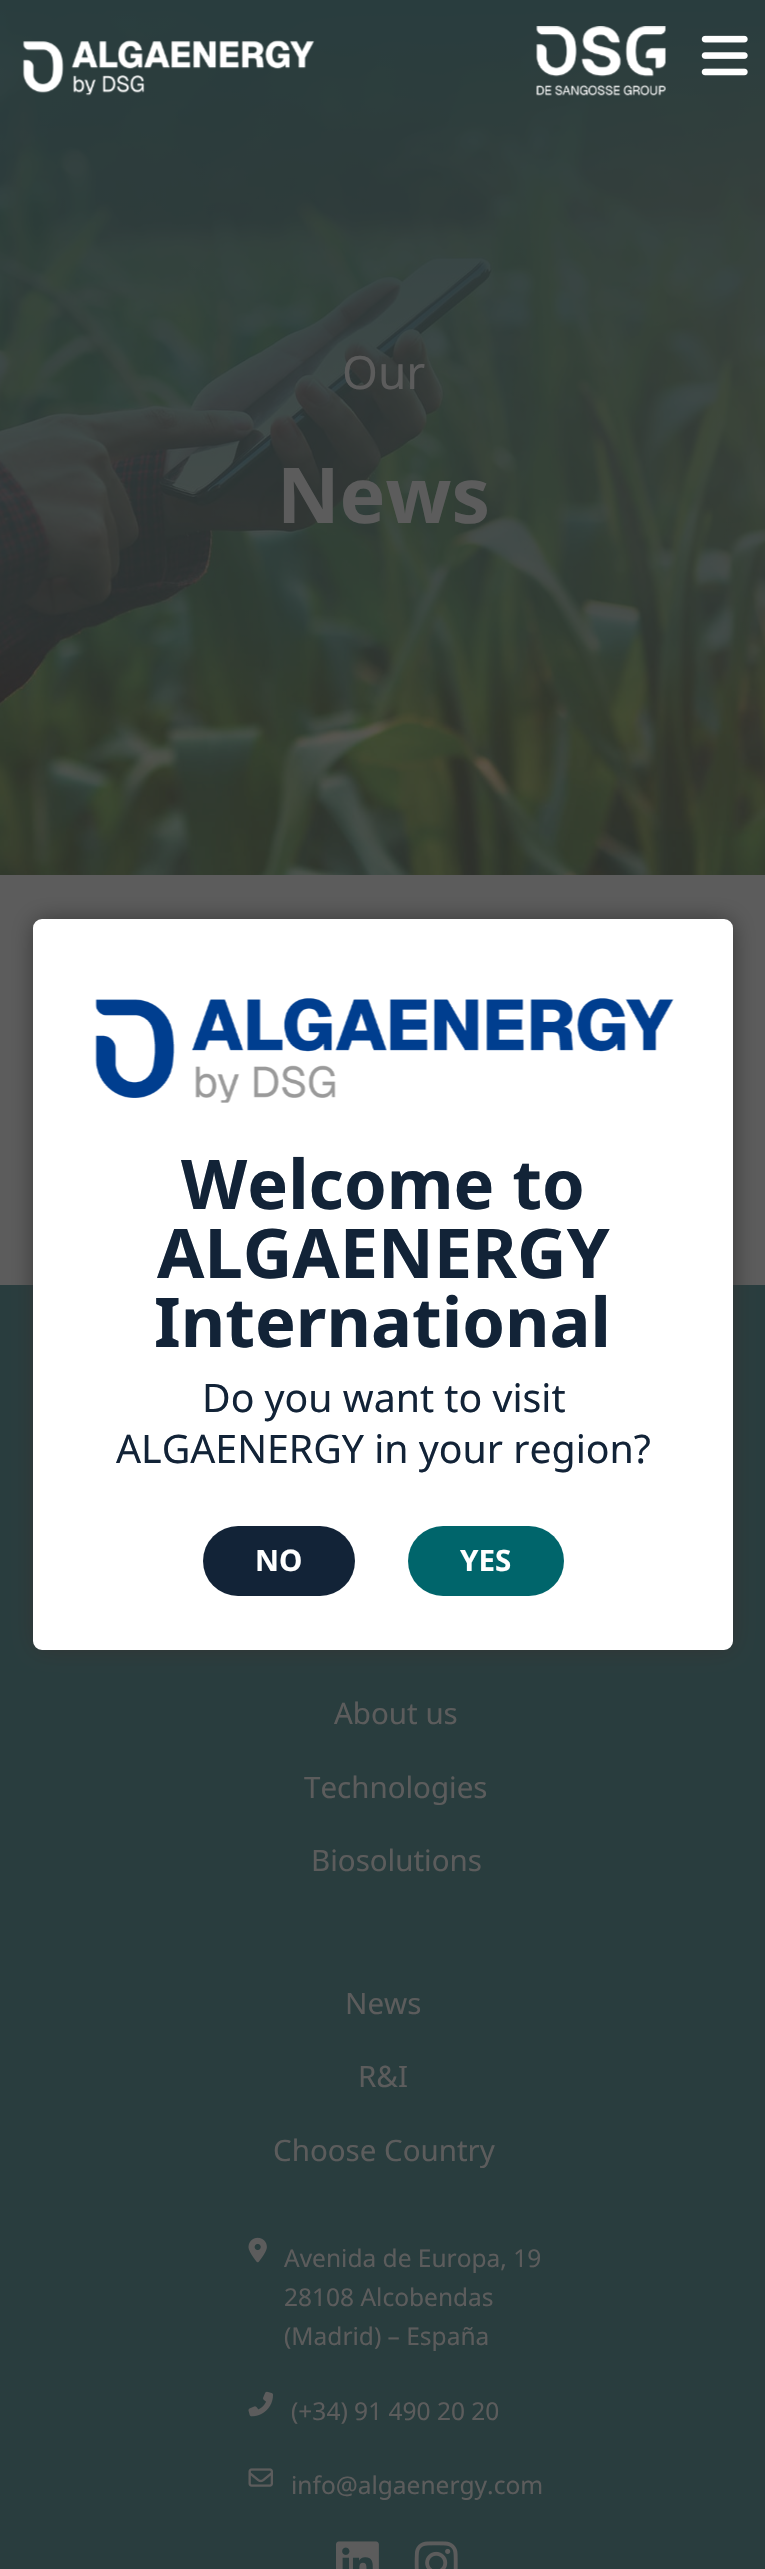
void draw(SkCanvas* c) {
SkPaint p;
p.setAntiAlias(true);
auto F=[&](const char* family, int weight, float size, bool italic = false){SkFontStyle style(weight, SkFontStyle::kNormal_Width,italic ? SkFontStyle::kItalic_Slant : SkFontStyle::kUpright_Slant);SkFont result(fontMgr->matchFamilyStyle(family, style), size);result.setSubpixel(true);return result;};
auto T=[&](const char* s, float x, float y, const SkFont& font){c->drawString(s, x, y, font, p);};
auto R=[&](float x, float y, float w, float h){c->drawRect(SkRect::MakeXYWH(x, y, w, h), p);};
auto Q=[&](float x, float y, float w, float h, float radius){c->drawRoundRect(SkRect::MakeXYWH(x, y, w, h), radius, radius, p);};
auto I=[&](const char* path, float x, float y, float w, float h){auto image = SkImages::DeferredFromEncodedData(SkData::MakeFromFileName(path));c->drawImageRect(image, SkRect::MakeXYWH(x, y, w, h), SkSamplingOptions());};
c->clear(0xff5c5c5c);
I("4.png",0,0,765,875);
I("1.png",22,40,293,56);
I("2.png",536,26,130,70);
I("3.png",701,35,47,41);
auto f1 = F("Noto Sans",400,46);
p.setColor(0xff5c5c5c);
T("Our",342,389,f1);
auto f2 = F("Noto Sans",700,77);
T("News",277,523,f2);
p.setColor(0xff293d3e);
R(0,1285,765,1284);
auto f3 = F("Noto Sans",400,29.5);
p.setColor(0xff5c5c5c);
T("About us",334,1724,f3);
T("Technologies",304,1798,f3);
T("Biosolutions",311,1871,f3);
T("News",345,2014,f3);
T("R&I",358,2087,f3);
T("Choose Country",273,2161,f3);
I("5.png",248,2237,19,26);
auto f4 = F("Noto Sans",400,24.5);
T("Avenida de Europa, 19",284,2267,f4);
T("28108 Alcobendas",284,2306,f4);
T("(Madrid) – España",284,2345,f4);
I("6.png",248,2391,25,26);
T("(+34) 91 490 20 20",291,2420,f4);
I("7.png",248,2468,25,19);
T("info@algaenergy.com",291,2494,f4);
I("8.png",336,2541,43,28);
I("9.png",414,2541,44,28);
p.setColor(0xff333333);
p.setMaskFilter(SkMaskFilter::MakeBlur(kNormal_SkBlurStyle, 12));
c->drawRoundRect(SkRect::MakeXYWH(35,921,697,728),7,7,p);
p.setMaskFilter(nullptr);
p.setColor(0xffffffff);
c->drawRoundRect(SkRect::MakeXYWH(34,920,698,729),8,8,p);
p.setStroke(true);
p.setStrokeWidth(2);
c->drawRoundRect(SkRect::MakeXYWH(34,920,698,729),8,8,p);
I("10.png",95,998,579,105);
auto f5 = F("Noto Sans",700,68.5);
p.setStroke(false);
p.setColor(0xff122337);
T("Welcome to",181,1209,f5);
T("ALGAENERGY",157,1278,f5);
T("International",154,1347,f5);
auto f6 = F("Noto Sans",400,39.25);
T("Do you want to visit",202,1412,f6);
T("ALGAENERGY in your region?",116,1463,f6);
Q(203,1526,152,70,35);
auto f7 = F("Noto Sans",700,29.5);
p.setColor(0xffffffff);
T("NO",255,1571,f7);
p.setColor(0xff00656b);
Q(408,1526,156,70,35);
p.setColor(0xffffffff);
T("YES",460,1571,f7);
}
